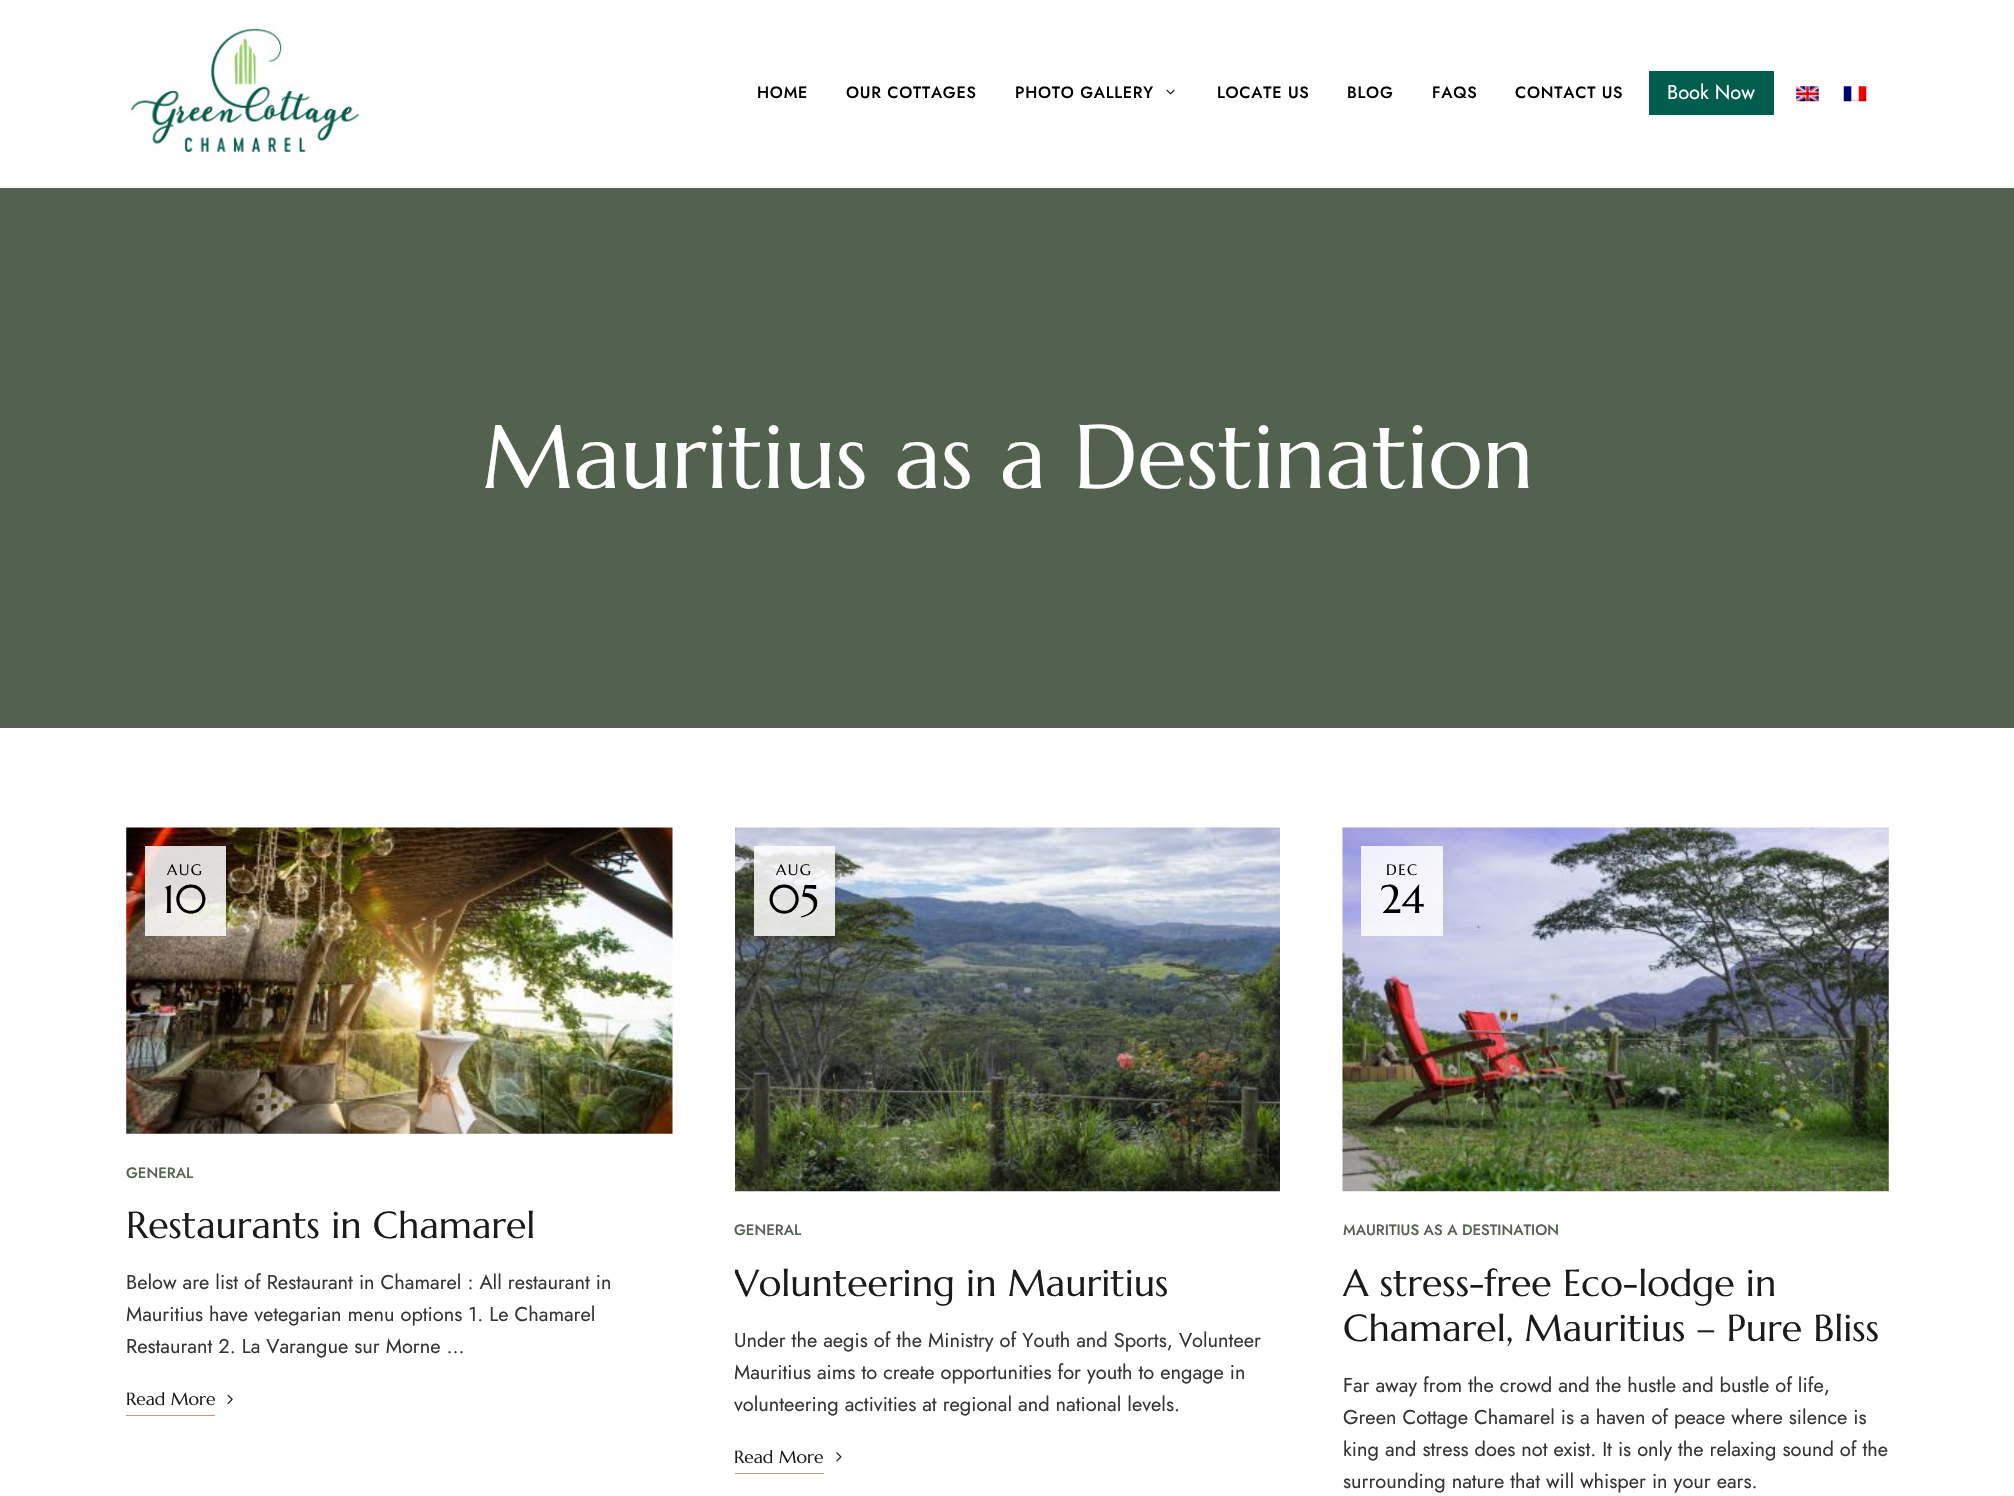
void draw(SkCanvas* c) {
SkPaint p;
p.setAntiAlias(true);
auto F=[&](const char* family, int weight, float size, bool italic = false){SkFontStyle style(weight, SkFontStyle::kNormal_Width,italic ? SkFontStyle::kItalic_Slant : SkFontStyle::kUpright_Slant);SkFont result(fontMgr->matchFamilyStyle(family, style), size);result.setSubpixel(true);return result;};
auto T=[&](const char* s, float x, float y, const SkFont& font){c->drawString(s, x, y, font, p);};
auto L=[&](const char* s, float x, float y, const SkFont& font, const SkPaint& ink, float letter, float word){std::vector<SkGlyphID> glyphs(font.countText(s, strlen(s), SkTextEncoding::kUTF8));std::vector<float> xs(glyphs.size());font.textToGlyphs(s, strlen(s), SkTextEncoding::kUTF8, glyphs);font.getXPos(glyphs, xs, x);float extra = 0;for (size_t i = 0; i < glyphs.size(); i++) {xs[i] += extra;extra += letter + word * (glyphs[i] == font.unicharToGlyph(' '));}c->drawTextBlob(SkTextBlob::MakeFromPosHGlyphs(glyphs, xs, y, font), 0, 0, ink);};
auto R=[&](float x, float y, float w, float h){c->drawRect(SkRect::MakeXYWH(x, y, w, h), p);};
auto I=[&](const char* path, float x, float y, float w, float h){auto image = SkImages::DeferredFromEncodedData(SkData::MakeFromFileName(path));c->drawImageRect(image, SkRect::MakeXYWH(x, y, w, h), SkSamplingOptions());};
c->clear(0xffffffff);
p.setColor(0xffeeeeee);
R(0,186,2014,1);
I("1.png",127,25,234,134);
auto f1 = F("Jost",500,16.25);
p.setColor(0xff000000);
L("HOME",757,98,f1,p,.75,0);
L("OUR COTTAGES",846,98,f1,p,.75,0);
L("PHOTO GALLERY",1015,98,f1,p,.75,0);
I("2.png",1166,89,9,6);
L("LOCATE US",1217,98,f1,p,.75,0);
L("BLOG",1347,98,f1,p,.75,0);
L("FAQS",1432,98,f1,p,.75,0);
L("CONTACT US",1515,98,f1,p,.75,0);
p.setColor(0xff005d4d);
R(1649,71,125,44);
auto f2 = F("Jost",400,20);
p.setColor(0xffffffff);
T("Book Now",1667,99,f2);
I("3.png",1796,86,23,16);
I("4.png",1843,86,24,16);
p.setColor(0xff53624e);
R(0,188,2014,540);
auto f3 = F("Marcellus",400,90);
p.setColor(0xffffffff);
T("Mauritius as a Destination",482,488,f3);
I("5.png",126,827,547,307);
p.setColor(0xd9ffffff);
R(145,846,81,90);
auto f4 = F("Marcellus",400,15);
p.setColor(0xff000000);
L("AUG",167,875,f4,p,1.5,0);
auto f5 = F("Marcellus",400,40);
T("10",163,913,f5);
auto f6 = F("Jost",500,15);
p.setColor(0xff53624e);
T("GENERAL",126,1178,f6);
auto f7 = F("Marcellus",400,37.5);
p.setColor(0xff1a1b1a);
T("Restaurants in Chamarel",126,1238,f7);
p.setColor(0xff333632);
T("Below are list of Restaurant in Chamarel : All restaurant in",126,1289,f2);
T("Mauritius have vetegarian menu options 1. Le Chamarel",126,1321,f2);
T("Restaurant 2. La Varangue sur Morne …",126,1353,f2);
auto f8 = F("Marcellus",400,17.5);
p.setColor(0xff1a1b1a);
T("Read More",126,1405,f8);
I("6.png",227,1394,6,10);
p.setColor(0xffb99d75);
R(126,1415,89,1);
I("7.png",735,827,545,365);
p.setColor(0xd9ffffff);
R(754,846,81,90);
p.setColor(0xff000000);
L("AUG",776,875,f4,p,1.5,0);
T("05",768,913,f5);
p.setColor(0xff53624e);
T("GENERAL",734,1235,f6);
c->save();
c->clipRect(SkRect::MakeXYWH(735,828,545,665));
p.setColor(0xff1a1b1a);
T("Volunteering in Mauritius",734,1296,f7);
c->restore();
p.setColor(0xff333632);
T("Under the aegis of the Ministry of Youth and Sports, Volunteer",734,1347,f2);
T("Mauritius aims to create opportunities for youth to engage in",734,1379,f2);
T("volunteering activities at regional and national levels.",734,1411,f2);
p.setColor(0xff1a1b1a);
T("Read More",734,1463,f8);
I("8.png",836,1452,6,10);
p.setColor(0xffb99d75);
R(735,1473,89,1);
I("9.png",1342,827,547,365);
p.setColor(0xd9ffffff);
R(1361,846,82,90);
p.setColor(0xff000000);
L("DEC",1386,875,f4,p,1.5,0);
T("24",1380,913,f5);
p.setColor(0xff53624e);
T("MAURITIUS AS A DESTINATION",1343,1235,f6);
p.setColor(0xff1a1b1a);
T("A stress-free Eco-lodge in",1343,1296,f7);
T("Chamarel, Mauritius – Pure Bliss",1343,1341,f7);
p.setColor(0xff333632);
T("Far away from the crowd and the hustle and bustle of life,",1343,1392,f2);
T("Green Cottage Chamarel is a haven of peace where silence is",1343,1424,f2);
T("king and stress does not exist. It is only the relaxing sound of the",1343,1456,f2);
T("surrounding nature that will whisper in your ears.",1343,1488,f2);
}
